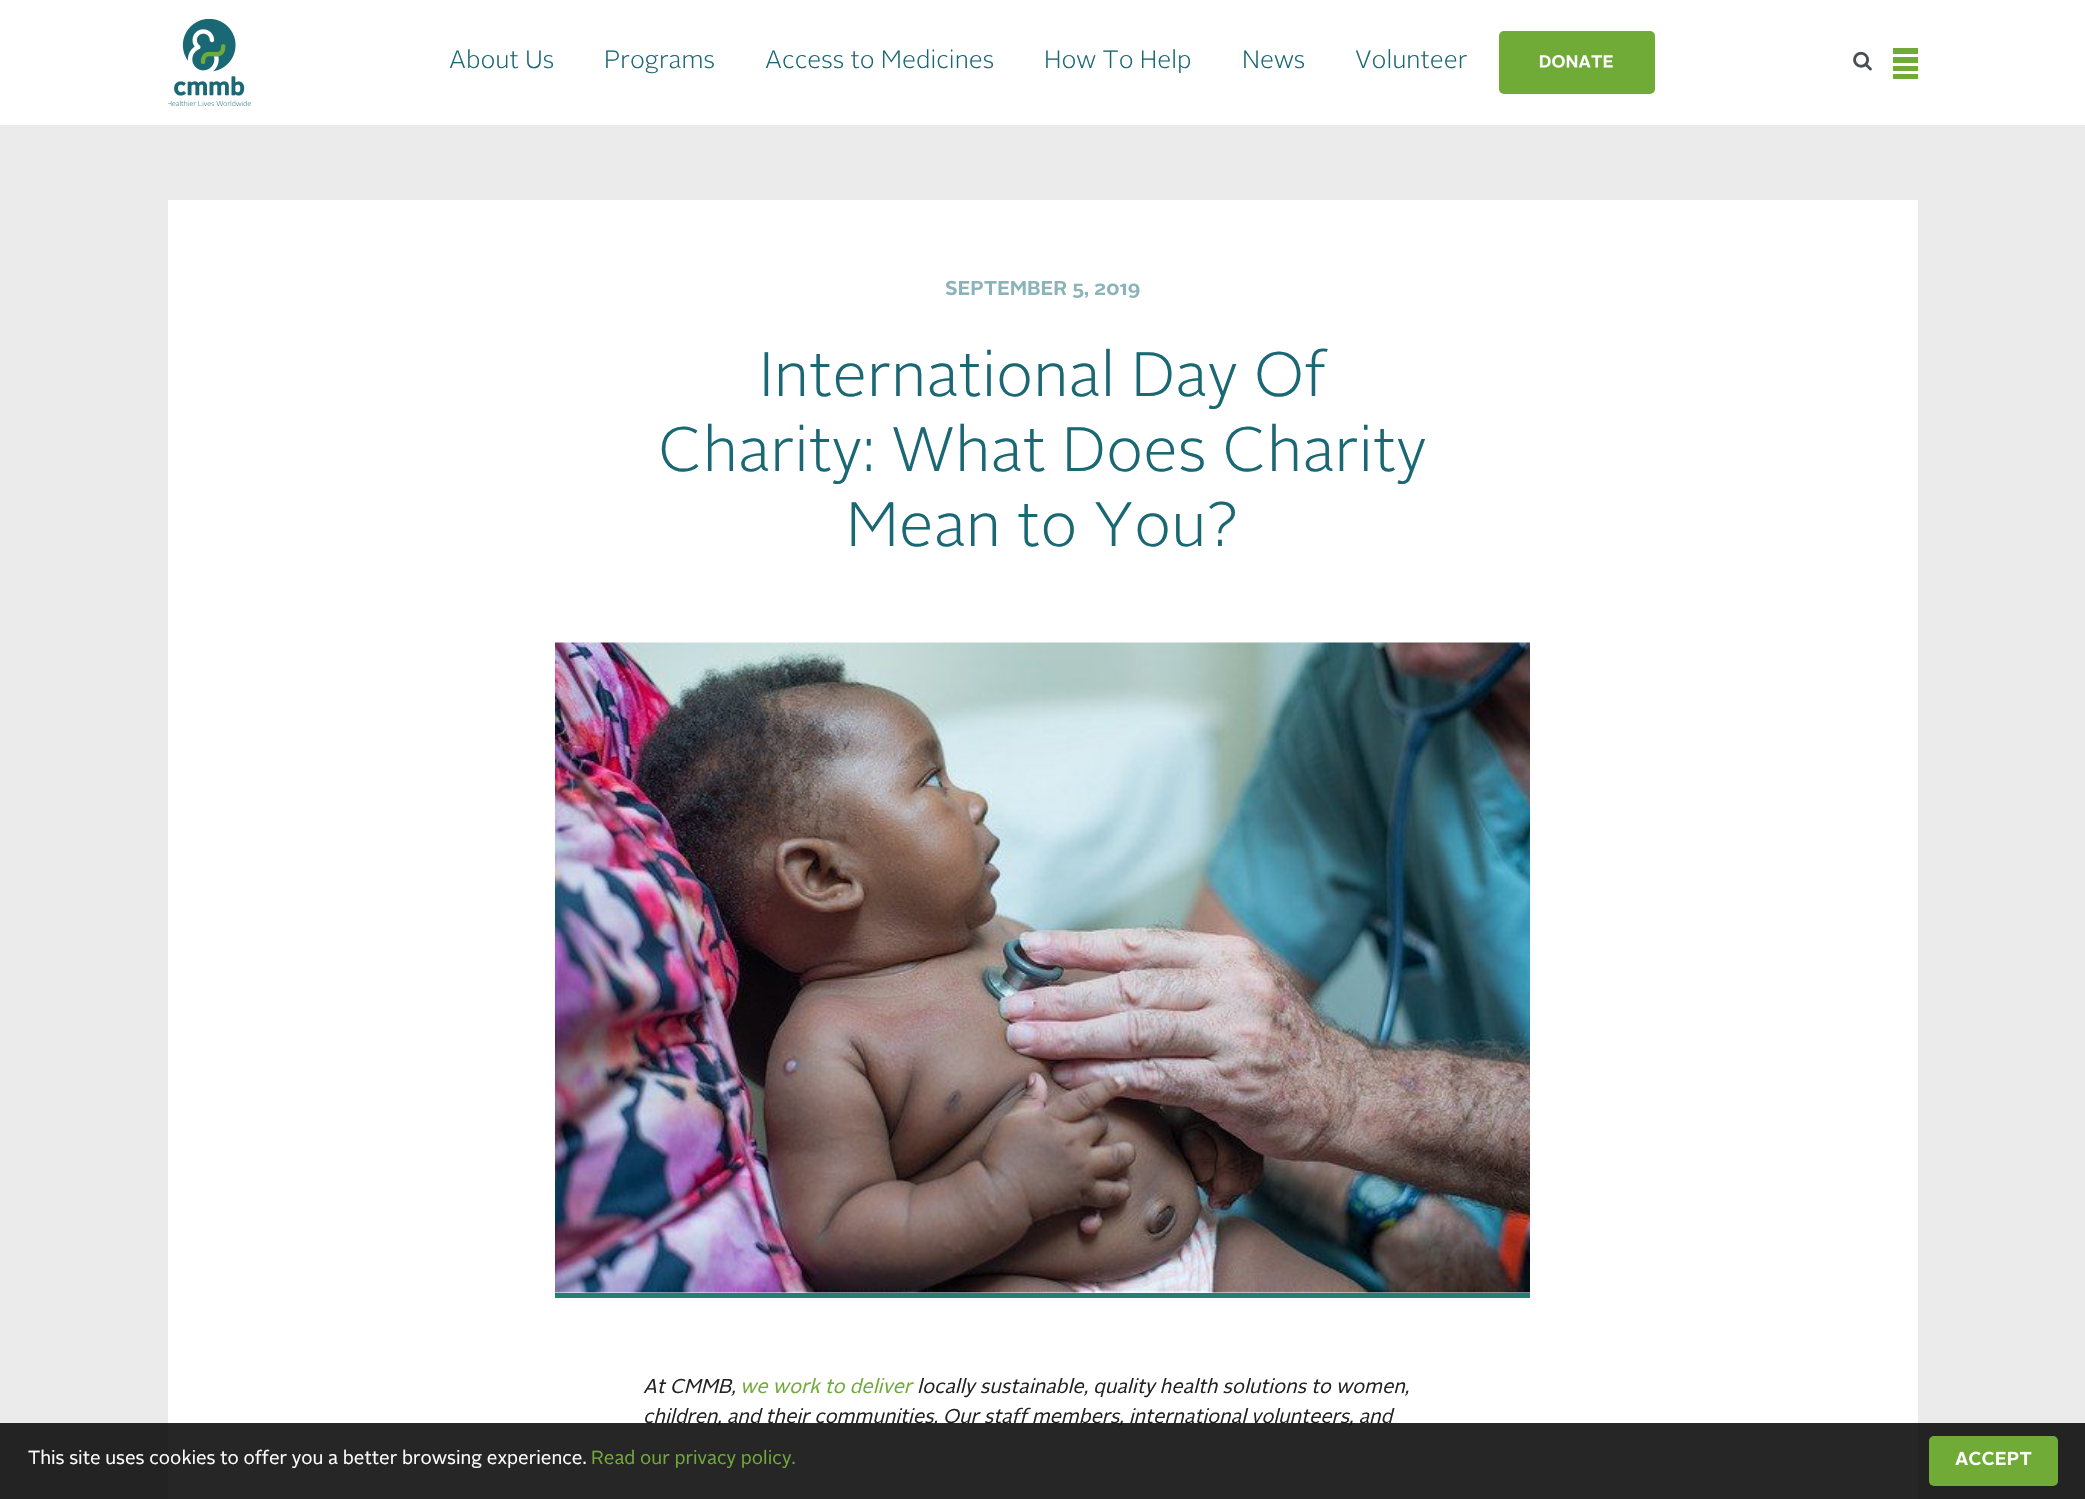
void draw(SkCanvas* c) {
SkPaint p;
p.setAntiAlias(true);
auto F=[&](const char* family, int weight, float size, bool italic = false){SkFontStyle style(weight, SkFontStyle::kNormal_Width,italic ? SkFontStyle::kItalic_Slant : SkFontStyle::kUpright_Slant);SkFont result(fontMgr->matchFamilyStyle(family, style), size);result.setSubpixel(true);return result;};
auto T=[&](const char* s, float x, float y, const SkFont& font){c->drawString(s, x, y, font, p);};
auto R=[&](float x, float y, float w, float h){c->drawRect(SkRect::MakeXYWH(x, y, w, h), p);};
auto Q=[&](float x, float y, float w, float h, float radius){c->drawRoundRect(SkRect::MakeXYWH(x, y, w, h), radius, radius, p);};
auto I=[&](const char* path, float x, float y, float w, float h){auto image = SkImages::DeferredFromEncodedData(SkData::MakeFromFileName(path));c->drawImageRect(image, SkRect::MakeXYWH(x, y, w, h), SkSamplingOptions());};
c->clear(0xffffffff);
I("1.png",168,19,83,87);
auto f1 = F("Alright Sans",300,25);
p.setColor(0xff1b6875);
T("About Us",449,68,f1);
T("Programs",604,68,f1);
T("Access to Medicines",765,68,f1);
T("How To Help",1044,68,f1);
T("News",1242,68,f1);
T("Volunteer",1355,68,f1);
p.setColor(0xff70ab37);
Q(1499,31,156,63,5);
I("2.png",1539,55,74,13);
I("3.png",1853,51,19,20);
R(1893,48,25,31);
p.setColor(0xffffffff);
R(1893,54,25,3);
R(1893,63,25,3);
R(1893,71,25,3);
p.setColor(0xffebebeb);
R(0,125,2085,1374);
p.setColor(0xffffffff);
R(168,200,1750,1299);
I("4.png",945,280,195,18);
auto f2 = F("Alright Sans",300,62.5);
p.setColor(0xff1b6875);
T("International Day Of",759,396,f2);
T("Charity: What Does Charity",658,471,f2);
T("Mean to You?",846,546,f2);
p.setColor(0xff237e74);
R(555,1293,975,5);
I("5.png",555,642,975,651);
auto f3 = F("Alright Sans",400,20,true);
p.setColor(0xff222222);
T("At CMMB,",643,1393,f3);
p.setColor(0xff70ab37);
T("we work to deliver",740,1393,f3);
p.setColor(0xff222222);
T("locally sustainable, quality health solutions to women,",917,1393,f3);
T("children, and their communities. Our staff members, international volunteers, and",643,1423,f3);
p.setColor(0xd9000000);
R(0,1423,2085,76);
auto f4 = F("Alright Sans",400,18.75);
p.setColor(0xffffffff);
T("This site uses cookies to offer you a better browsing experience.",28,1464,f4);
p.setColor(0xff70ab37);
T("Read our privacy policy.",591,1464,f4);
Q(1929,1436,129,50,5);
I("6.png",1955,1451,77,15);
}
